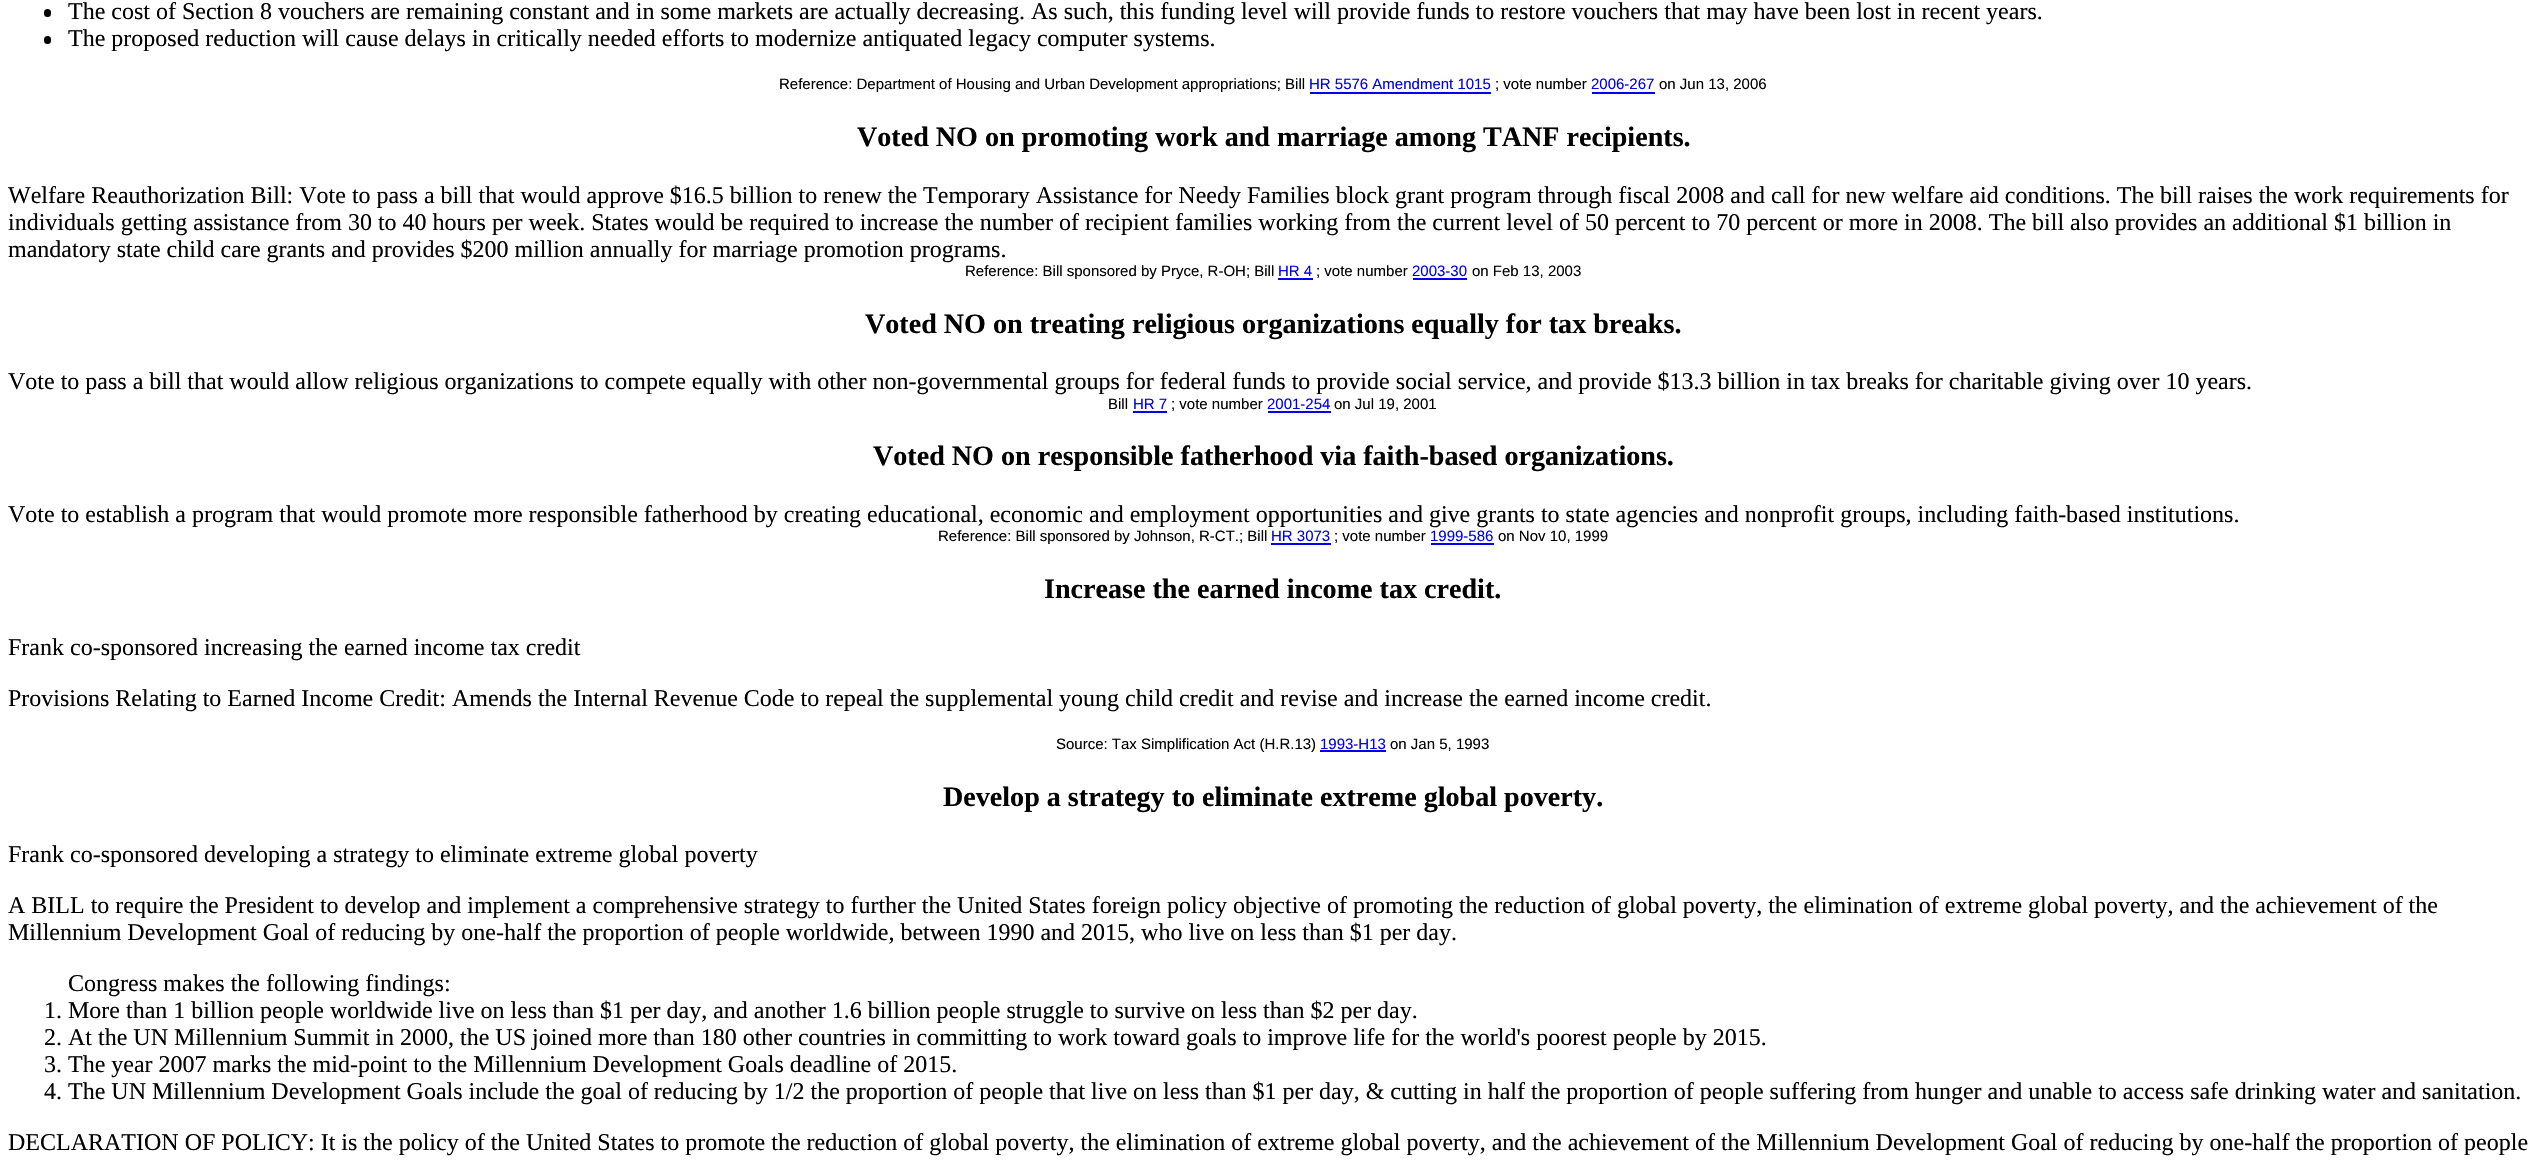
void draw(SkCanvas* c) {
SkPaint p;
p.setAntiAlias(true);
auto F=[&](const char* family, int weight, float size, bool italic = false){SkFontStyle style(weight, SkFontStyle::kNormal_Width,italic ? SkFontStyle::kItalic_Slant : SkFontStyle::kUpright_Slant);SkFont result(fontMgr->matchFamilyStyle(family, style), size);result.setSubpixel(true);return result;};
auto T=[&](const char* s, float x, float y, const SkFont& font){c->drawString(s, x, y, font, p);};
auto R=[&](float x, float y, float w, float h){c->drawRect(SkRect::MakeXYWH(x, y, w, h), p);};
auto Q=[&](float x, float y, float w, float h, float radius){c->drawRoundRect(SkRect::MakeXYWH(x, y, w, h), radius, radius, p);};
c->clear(0xffffffff);
p.setColor(0xff000000);
Q(44,9,7,8,3.5);
auto f1 = F("Liberation Serif",400,24);
T("The cost of Section 8 vouchers are remaining constant and in some markets are actually decreasing. As such, this funding level will provide funds to restore vouchers that may have been lost in recent years.",68,19,f1);
Q(44,36,7,8,3.5);
T("The proposed reduction will cause delays in critically needed efforts to modernize antiquated legacy computer systems.",68,46,f1);
auto f2 = F("Liberation Sans",400,15);
T("Reference: Department of Housing and Urban Development appropriations; Bill",779,89,f2);
p.setColor(0xff0000ee);
T("HR 5576 Amendment 1015",1309,89,f2);
R(1310,92,181,2);
p.setColor(0xff000000);
T("; vote number",1495,89,f2);
p.setColor(0xff0000ee);
T("2006-267",1591,89,f2);
R(1592,92,63,2);
p.setColor(0xff000000);
T("on Jun 13, 2006",1659,89,f2);
auto f3 = F("Liberation Serif",700,28.1);
T("Voted NO on promoting work and marriage among TANF recipients.",857,146,f3);
T("Welfare Reauthorization Bill: Vote to pass a bill that would approve $16.5 billion to renew the Temporary Assistance for Needy Families block grant program through fiscal 2008 and call for new welfare aid conditions. The bill raises the work requirements for",8,203,f1);
T("individuals getting assistance from 30 to 40 hours per week. States would be required to increase the number of recipient families working from the current level of 50 percent to 70 percent or more in 2008. The bill also provides an additional $1 billion in",8,230,f1);
T("mandatory state child care grants and provides $200 million annually for marriage promotion programs.",8,257,f1);
T("Reference: Bill sponsored by Pryce, R-OH; Bill",965,276,f2);
p.setColor(0xff0000ee);
T("HR 4",1278,276,f2);
R(1278,278,35,2);
p.setColor(0xff000000);
T("; vote number",1316,276,f2);
p.setColor(0xff0000ee);
T("2003-30",1412,276,f2);
R(1413,278,54,2);
p.setColor(0xff000000);
T("on Feb 13, 2003",1472,276,f2);
T("Voted NO on treating religious organizations equally for tax breaks.",865,333,f3);
T("Vote to pass a bill that would allow religious organizations to compete equally with other non-governmental groups for federal funds to provide social service, and provide $13.3 billion in tax breaks for charitable giving over 10 years.",8,389,f1);
T("Bill",1108,409,f2);
p.setColor(0xff0000ee);
T("HR 7",1133,409,f2);
R(1133,411,34,2);
p.setColor(0xff000000);
T("; vote number",1171,409,f2);
p.setColor(0xff0000ee);
T("2001-254",1267,409,f2);
R(1268,411,63,2);
p.setColor(0xff000000);
T("on Jul 19, 2001",1334,409,f2);
T("Voted NO on responsible fatherhood via faith-based organizations.",873,465,f3);
T("Vote to establish a program that would promote more responsible fatherhood by creating educational, economic and employment opportunities and give grants to state agencies and nonprofit groups, including faith-based institutions.",8,522,f1);
T("Reference: Bill sponsored by Johnson, R-CT.; Bill",938,541,f2);
p.setColor(0xff0000ee);
T("HR 3073",1271,541,f2);
R(1271,543,60,2);
p.setColor(0xff000000);
T("; vote number",1334,541,f2);
p.setColor(0xff0000ee);
T("1999-586",1430,541,f2);
R(1431,543,63,2);
p.setColor(0xff000000);
T("on Nov 10, 1999",1498,541,f2);
T("Increase the earned income tax credit.",1044,598,f3);
T("Frank co-sponsored increasing the earned income tax credit",8,655,f1);
T("Provisions Relating to Earned Income Credit: Amends the Internal Revenue Code to repeal the supplemental young child credit and revise and increase the earned income credit.",8,706,f1);
T("Source: Tax Simplification Act (H.R.13)",1056,749,f2);
p.setColor(0xff0000ee);
T("1993-H13",1320,749,f2);
R(1320,750,66,2);
p.setColor(0xff000000);
T("on Jan 5, 1993",1390,749,f2);
T("Develop a strategy to eliminate extreme global poverty.",943,806,f3);
T("Frank co-sponsored developing a strategy to eliminate extreme global poverty",8,862,f1);
T("A BILL to require the President to develop and implement a comprehensive strategy to further the United States foreign policy objective of promoting the reduction of global poverty, the elimination of extreme global poverty, and the achievement of the",8,913,f1);
T("Millennium Development Goal of reducing by one-half the proportion of people worldwide, between 1990 and 2015, who live on less than $1 per day.",8,940,f1);
T("Congress makes the following findings:",68,991,f1);
T("1. More than 1 billion people worldwide live on less than $1 per day, and another 1.6 billion people struggle to survive on less than $2 per day.",44,1018,f1);
T("2. At the UN Millennium Summit in 2000, the US joined more than 180 other countries in committing to work toward goals to improve life for the world's poorest people by 2015.",44,1045,f1);
T("3. The year 2007 marks the mid-point to the Millennium Development Goals deadline of 2015.",44,1072,f1);
T("4. The UN Millennium Development Goals include the goal of reducing by 1/2 the proportion of people that live on less than $1 per day, & cutting in half the proportion of people suffering from hunger and unable to access safe drinking water and sanitation.",44,1099,f1);
T("DECLARATION OF POLICY: It is the policy of the United States to promote the reduction of global poverty, the elimination of extreme global poverty, and the achievement of the Millennium Development Goal of reducing by one-half the proportion of people",8,1150,f1);
}
